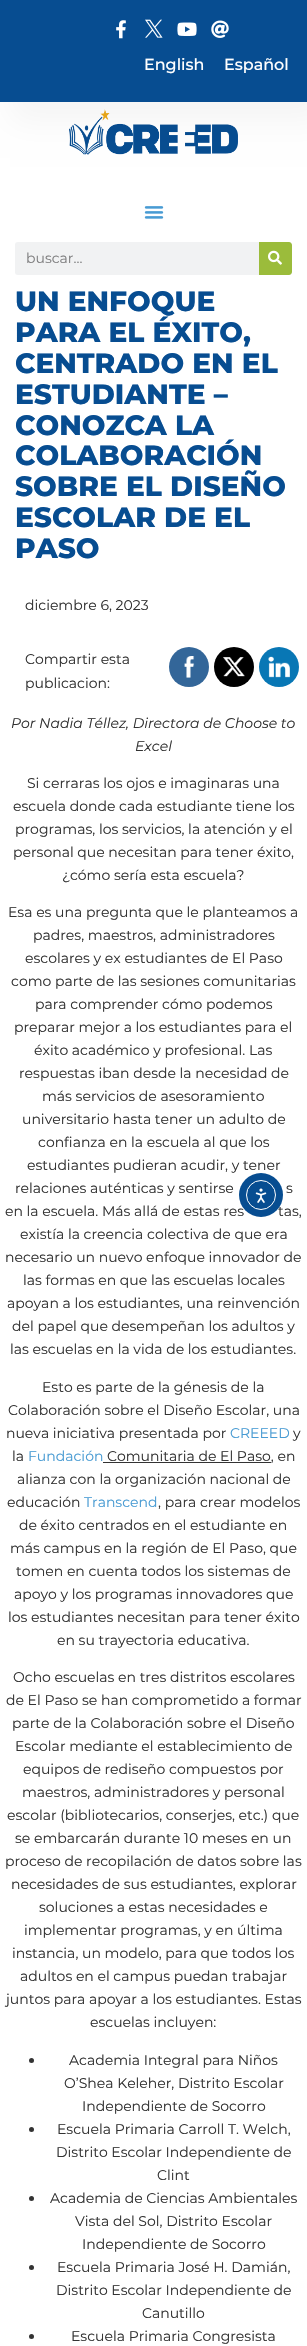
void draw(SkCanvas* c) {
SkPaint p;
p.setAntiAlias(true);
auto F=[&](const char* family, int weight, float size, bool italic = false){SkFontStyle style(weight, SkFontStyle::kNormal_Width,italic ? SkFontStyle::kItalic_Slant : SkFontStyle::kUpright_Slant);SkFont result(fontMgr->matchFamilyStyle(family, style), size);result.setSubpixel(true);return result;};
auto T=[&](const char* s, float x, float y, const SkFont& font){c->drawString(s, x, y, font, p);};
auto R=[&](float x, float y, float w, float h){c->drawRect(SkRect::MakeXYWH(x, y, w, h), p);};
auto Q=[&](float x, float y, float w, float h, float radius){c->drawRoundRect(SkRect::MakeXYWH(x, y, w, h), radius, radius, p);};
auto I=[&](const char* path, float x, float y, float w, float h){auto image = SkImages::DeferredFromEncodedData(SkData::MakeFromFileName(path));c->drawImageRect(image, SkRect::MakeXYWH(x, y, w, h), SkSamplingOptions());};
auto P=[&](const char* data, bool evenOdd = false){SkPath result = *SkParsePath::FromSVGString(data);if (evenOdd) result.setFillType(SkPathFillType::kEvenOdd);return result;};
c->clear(0xffffffff);
I("5.png",69,109,169,46);
p.setColor(0x0a000000);
p.setMaskFilter(SkMaskFilter::MakeBlur(kNormal_SkBlurStyle, 15));
c->drawRect(SkRect::MakeXYWH(10,10,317,112),p);
p.setMaskFilter(nullptr);
p.setColor(0xff074d91);
R(0,0,307,102);
I("1.png",116,20,10,19);
I("2.png",145,19,18,19);
I("3.png",177,22,20,14);
I("4.png",211,20,18,18);
auto f1 = F("Montserrat",500,16);
p.setColor(0xffffffff);
T("English",144,70,f1);
T("Español",224,70,f1);
I("6.png",144,206,20,13);
p.setColor(0xfff1f2f3);
Q(15,242,277,33,3);
auto f2 = F("Montserrat",400,14);
p.setColor(0xff7f7f80);
T("buscar...",26,263,f2);
p.setColor(0xff9bbc3b);
c->drawPath(P("M259 242h30c1.5 0 3 1.5 3 3v27c0 1.5-1.5 3-3 3h-30z"),p);
I("7.png",268,250,14,15);
auto f3 = F("Montserrat",800,28);
p.setColor(0xff074d91);
T("UN ENFOQUE",15,311,f3);
T("PARA EL ÉXITO,",15,342,f3);
T("CENTRADO EN EL",15,373,f3);
T("ESTUDIANTE –",15,404,f3);
T("CONOZCA LA",15,435,f3);
T("COLABORACIÓN",15,465,f3);
T("SOBRE EL DISEÑO",15,496,f3);
T("ESCOLAR DE EL",15,527,f3);
T("PASO",15,558,f3);
p.setColor(0xff333333);
T("diciembre 6, 2023",25,610,f2);
T("Compartir esta",25,664,f2);
T("publicacion:",25,688,f2);
p.setColor(0xff336699);
c->drawCircle(189,667,20,p);
I("8.png",184,656,11,22);
p.setColor(0xff000000);
c->drawCircle(234,667,20,p);
I("9.png",223,657,22,20);
p.setColor(0xff0877b5);
c->drawCircle(279,667,20,p);
I("10.png",268,656,22,22);
auto f4 = F("Montserrat",400,14,true);
p.setColor(0xff333333);
T("Por Nadia Téllez, Directora de Choose to",11,728,f4);
T("Excel",135,751,f4);
T("Si cerraras los ojos e imaginaras una",27,788,f2);
T("escuela donde cada estudiante tiene los",13,811,f2);
T("programas, los servicios, la atención y el",15,834,f2);
T("personal que necesitan para tener éxito,",13,857,f2);
T("¿cómo sería esta escuela?",62,880,f2);
T("Esa es una pregunta que le planteamos a",8,917,f2);
T("padres, maestros, administradores",33,940,f2);
T("escolares y ex estudiantes de El Paso",25,963,f2);
T("como parte de las sesiones comunitarias",11,986,f2);
T("para comprender cómo podemos",35,1009,f2);
T("preparar mejor a los estudiantes para el",14,1032,f2);
T("éxito académico y profesional. Las",34,1055,f2);
T("respuestas iban desde la necesidad de",19,1078,f2);
T("más servicios de asesoramiento",42,1101,f2);
T("universitario hasta tener un adulto de",22,1124,f2);
T("confianza en la escuela al que los",38,1147,f2);
T("estudiantes pudieran acudir, y tener",27,1170,f2);
T("relaciones auténticas y sentirse",15,1193,f2);
T("s",286,1193,f2);
T("en la escuela. Más allá de estas res",5,1216,f2);
T("tas,",278,1216,f2);
T("existía la creencia colectiva de que era",20,1239,f2);
T("necesario un nuevo enfoque innovador de",5,1262,f2);
T("las formas en que las escuelas locales",23,1285,f2);
T("apoyan a los estudiantes, una reinvención",7,1308,f2);
T("del papel que desempeñan los adultos y",12,1331,f2);
T("las escuelas en la vida de los estudiantes.",10,1354,f2);
T("Esto es parte de la génesis de la",42,1392,f2);
T("Colaboración sobre el Diseño Escolar, una",8,1415,f2);
T("nueva iniciativa presentada por",6,1438,f2);
p.setColor(0xff489bd3);
T("CREEED",230,1438,f2);
p.setColor(0xff333333);
T("y",293,1438,f2);
T("la",12,1461,f2);
p.setColor(0xff489bd3);
T("Fundación",28,1461,f2);
p.setColor(0xff333333);
R(103,1462,168,1);
T("Comunitaria de El Paso, en",107,1461,f2);
T("alianza con la organización nacional de",17,1484,f2);
T("educación",7,1507,f2);
p.setColor(0xff489bd3);
T("Transcend",84,1507,f2);
p.setColor(0xff333333);
T(", para crear modelos",158,1507,f2);
T("de éxito centrados en el estudiante en",19,1530,f2);
T("más campus en la región de El Paso, que",10,1553,f2);
T("tomen en cuenta todos los sistemas de",16,1576,f2);
T("apoyo y los programas innovadores que",14,1599,f2);
T("los estudiantes necesitan para tener éxito",8,1622,f2);
T("en su trayectoria educativa.",57,1645,f2);
T("Ocho escuelas en tres distritos escolares",13,1682,f2);
T("de El Paso se han comprometido a formar",6,1705,f2);
T("parte de la Colaboración sobre el Diseño",12,1728,f2);
T("Escolar mediante el establecimiento de",15,1751,f2);
T("equipos de rediseño compuestos por",23,1774,f2);
T("maestros, administradores y personal",22,1797,f2);
T("escolar (bibliotecarios, conserjes, etc.) que",7,1820,f2);
T("se embarcarán durante 10 meses en un",15,1843,f2);
T("proceso de recopilación de datos sobre las",5,1866,f2);
T("necesidades de sus estudiantes, explorar",11,1889,f2);
T("soluciones a estas necesidades e",39,1912,f2);
T("implementar programas, y en última",24,1935,f2);
T("instancia, un modelo, para que todos los",12,1958,f2);
T("adultos en el campus puedan trabajar",20,1981,f2);
T("juntos para apoyar a los estudiantes. Estas",6,2004,f2);
T("escuelas incluyen:",90,2027,f2);
c->drawCircle(31.5,2060.5,2.5,p);
T("Academia Integral para Niños",69,2065,f2);
T("O’Shea Keleher, Distrito Escolar",64,2088,f2);
T("Independiente de Socorro",82,2111,f2);
c->drawCircle(31.5,2129.5,2.5,p);
T("Escuela Primaria Carroll T. Welch,",57,2134,f2);
T("Distrito Escolar Independiente de",56,2157,f2);
T("Clint",157,2180,f2);
c->drawCircle(31.5,2198.5,2.5,p);
T("Academia de Ciencias Ambientales",50,2203,f2);
T("Vista del Sol, Distrito Escolar",75,2226,f2);
T("Independiente de Socorro",82,2249,f2);
c->drawCircle(31.5,2267.5,2.5,p);
T("Escuela Primaria José H. Damián,",57,2272,f2);
T("Distrito Escolar Independiente de",56,2295,f2);
T("Canutillo",142,2318,f2);
c->drawCircle(31.5,2336.5,2.5,p);
T("Escuela Primaria Congresista",71,2341,f2);
p.setColor(0xff074d91);
c->drawCircle(261,1195,22,p);
p.setStroke(true);
p.setStrokeWidth(1);
p.setColor(0xffffffff);
c->drawCircle(261,1195,14.5,p);
I("11.png",255,1188,12,15);
}
